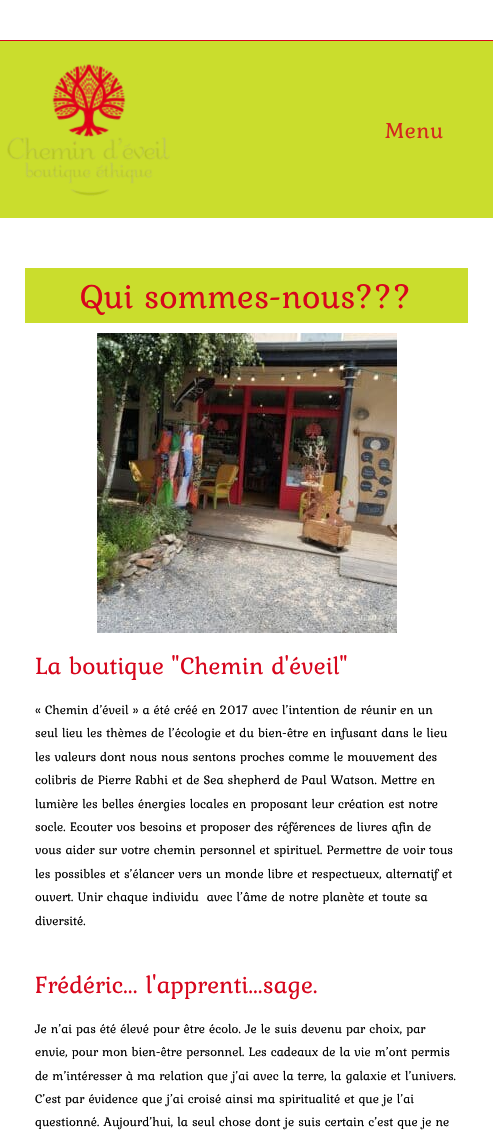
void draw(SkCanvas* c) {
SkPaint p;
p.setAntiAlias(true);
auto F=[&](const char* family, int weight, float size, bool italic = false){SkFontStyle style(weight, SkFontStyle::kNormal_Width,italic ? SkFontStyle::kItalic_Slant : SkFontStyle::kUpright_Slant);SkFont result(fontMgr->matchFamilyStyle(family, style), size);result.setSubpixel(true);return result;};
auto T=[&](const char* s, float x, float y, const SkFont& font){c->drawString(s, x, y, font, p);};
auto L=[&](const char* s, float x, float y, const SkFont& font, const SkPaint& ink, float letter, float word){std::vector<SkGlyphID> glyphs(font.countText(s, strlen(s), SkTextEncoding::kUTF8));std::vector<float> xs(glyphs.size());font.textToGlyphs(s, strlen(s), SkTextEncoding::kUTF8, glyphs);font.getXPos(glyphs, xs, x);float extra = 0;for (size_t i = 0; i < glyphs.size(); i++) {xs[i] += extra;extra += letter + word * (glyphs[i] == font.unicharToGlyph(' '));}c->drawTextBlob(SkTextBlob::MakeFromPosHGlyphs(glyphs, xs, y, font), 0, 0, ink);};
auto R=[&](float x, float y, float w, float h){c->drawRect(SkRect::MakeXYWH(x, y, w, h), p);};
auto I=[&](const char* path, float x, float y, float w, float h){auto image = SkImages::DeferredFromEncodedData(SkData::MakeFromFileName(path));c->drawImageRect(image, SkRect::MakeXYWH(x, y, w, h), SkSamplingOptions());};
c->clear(0xffffffff);
p.setColor(0xffd7061c);
R(0,40,493,1);
p.setColor(0xffcadd2d);
R(0,41,493,177);
I("1.png",7,64,163,132);
auto f1 = F("Kurale",400,23);
p.setColor(0xffd4281e);
L("Menu",385,138,f1,p,.5,0);
p.setColor(0xffcadd2d);
R(25,268,443,55);
auto f2 = F("Kurale",400,35);
p.setColor(0xffd7061c);
T("Qui sommes-nous?\077?",80,308,f2);
I("2.png",97,333,300,300);
auto f3 = F("Kurale",400,25);
T("La boutique \"Chemin d'éveil\"",35,674,f3);
auto f4 = F("Kurale",400,13);
p.setColor(0xff000000);
T("« Chemin d’éveil » a été créé en 2017 avec l’intention de réunir en un",35,714,f4);
T("seul lieu les thèmes de l’écologie et du bien-être en infusant dans le lieu",35,737,f4);
T("les valeurs dont nous nous sentons proches comme le mouvement des",35,761,f4);
T("colibris de Pierre Rabhi et de Sea shepherd de Paul Watson. Mettre en",35,784,f4);
T("lumière les belles énergies locales en proposant leur création est notre",35,808,f4);
T("socle. Ecouter vos besoins et proposer des références de livres afin de",35,831,f4);
T("vous aider sur votre chemin personnel et spirituel. Permettre de voir tous",35,854,f4);
T("les possibles et s’élancer vers un monde libre et respectueux, alternatif et",35,878,f4);
T("ouvert. Unir chaque individu  avec l’âme de notre planète et toute sa",35,901,f4);
T("diversité.",35,925,f4);
p.setColor(0xffd7061c);
T("Frédéric... l'apprenti...sage.",35,993,f3);
p.setColor(0xff000000);
T("Je n’ai pas été élevé pour être écolo. Je le suis devenu par choix, par",35,1033,f4);
T("envie, pour mon bien-être personnel. Les cadeaux de la vie m’ont permis",35,1056,f4);
T("de m’intéresser à ma relation que j’ai avec la terre, la galaxie et l’univers.",35,1080,f4);
T("C’est par évidence que j’ai croisé ainsi ma spiritualité et que je l’ai",35,1103,f4);
T("questionné. Aujourd’hui, la seul chose dont je suis certain c’est que je ne",35,1126,f4);
}
